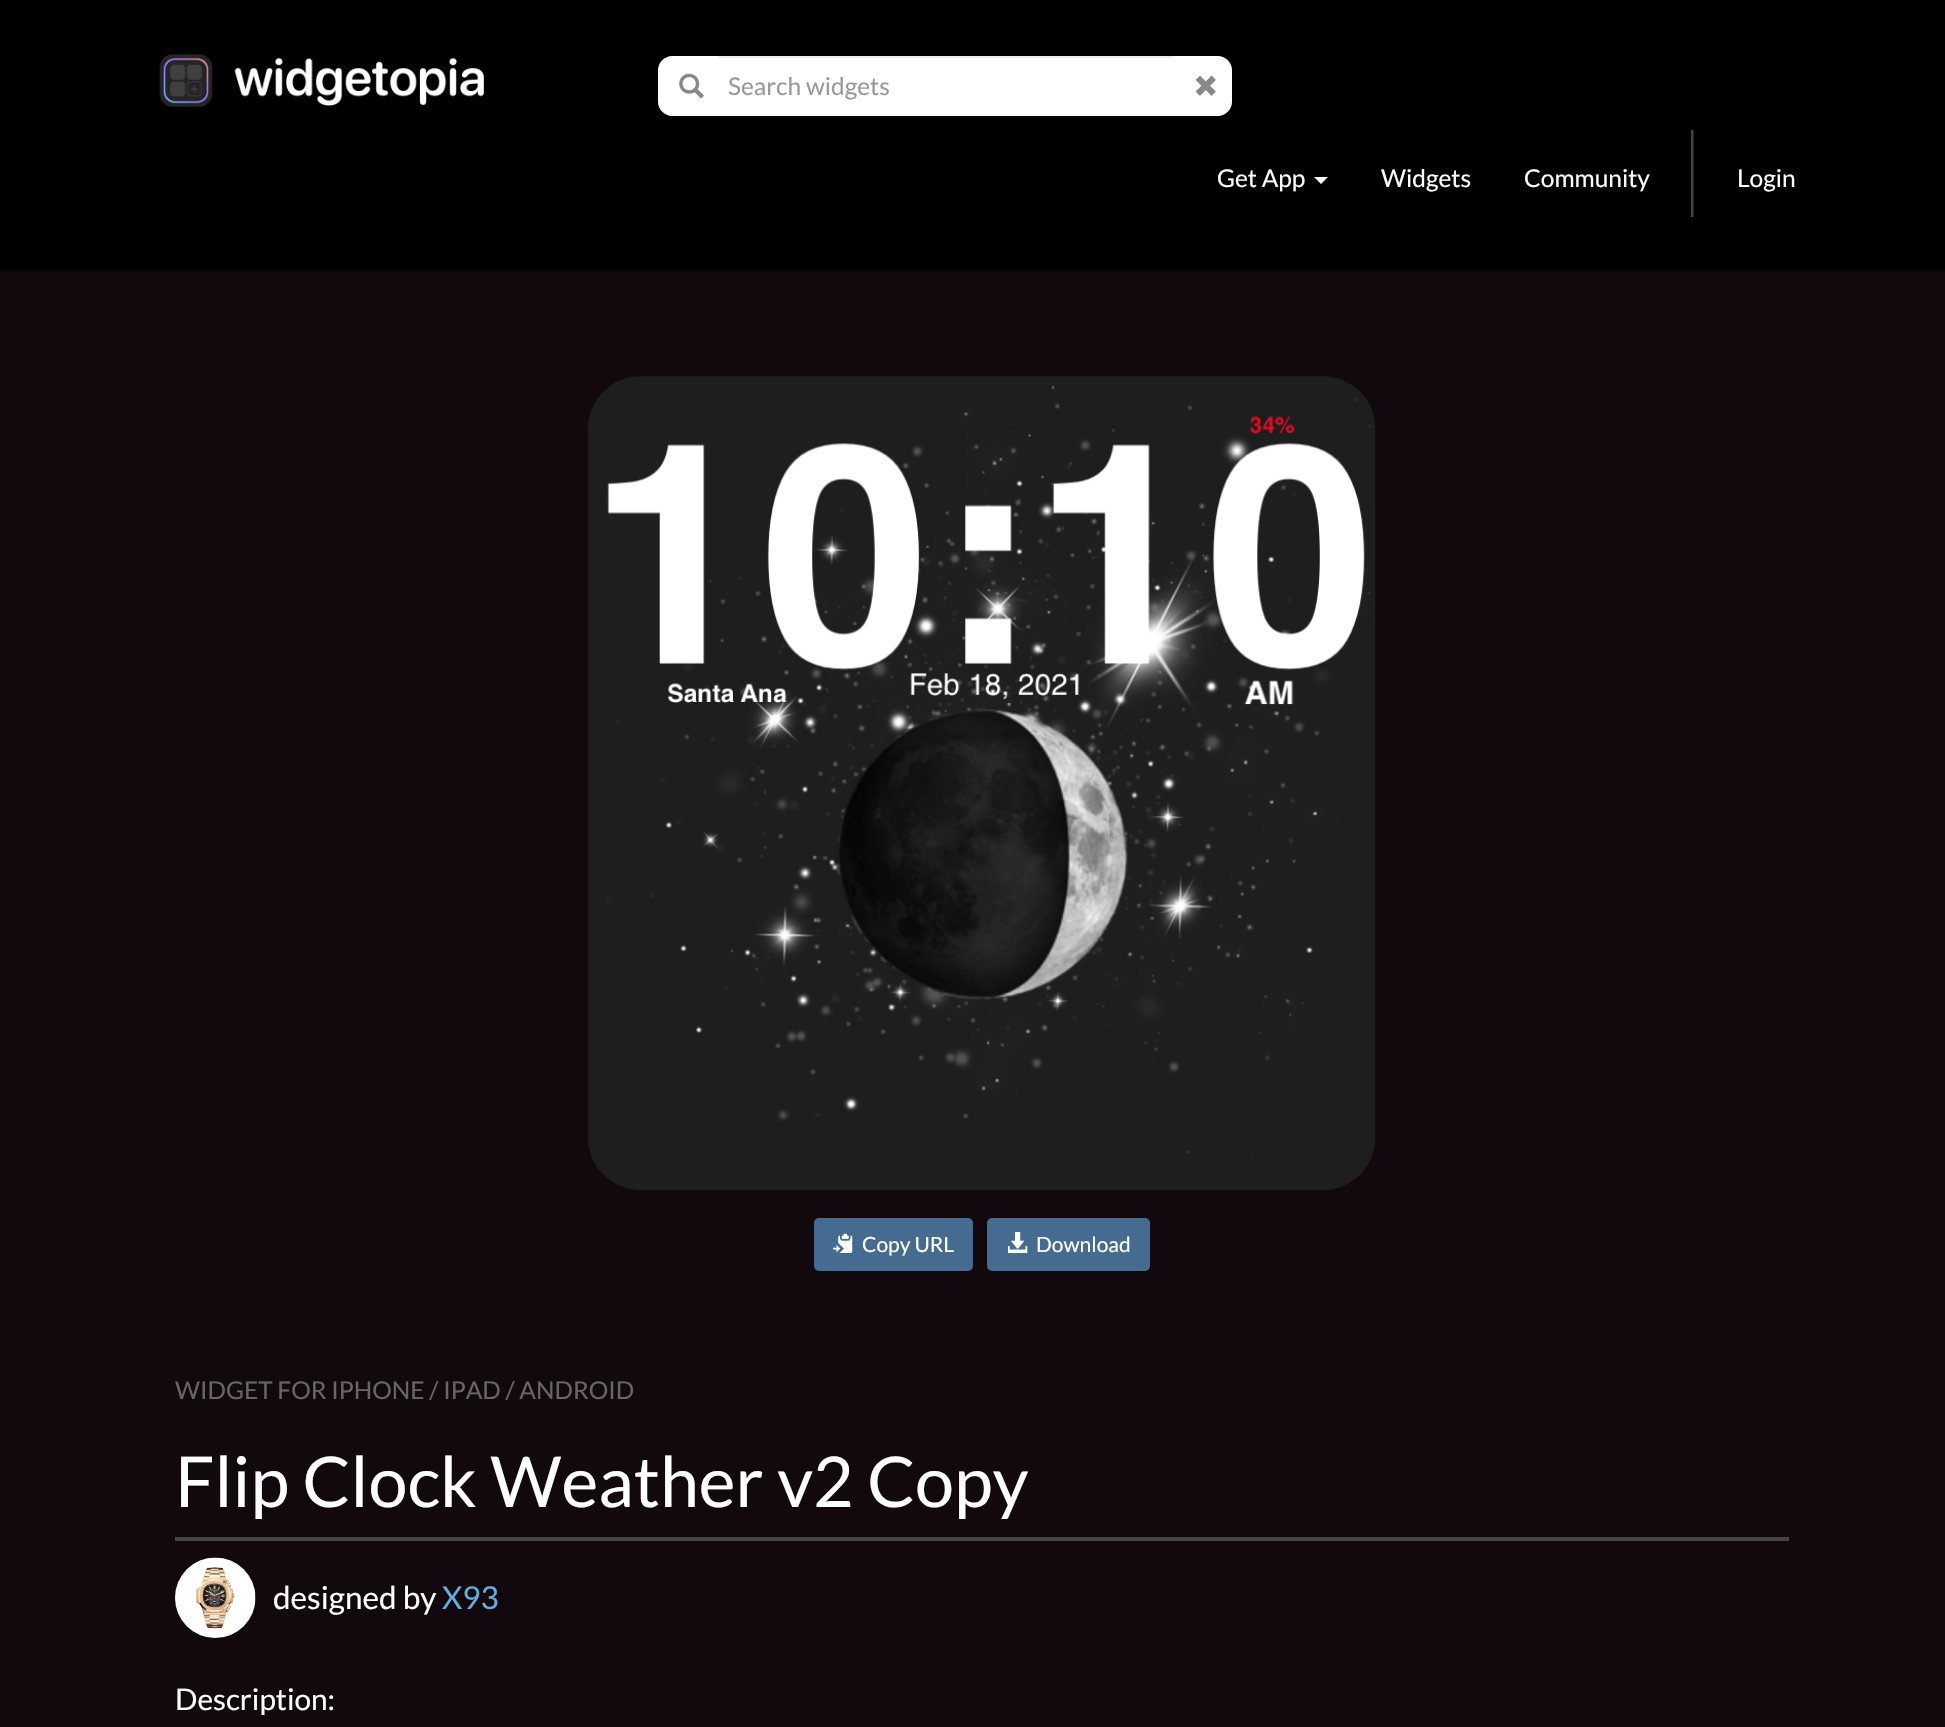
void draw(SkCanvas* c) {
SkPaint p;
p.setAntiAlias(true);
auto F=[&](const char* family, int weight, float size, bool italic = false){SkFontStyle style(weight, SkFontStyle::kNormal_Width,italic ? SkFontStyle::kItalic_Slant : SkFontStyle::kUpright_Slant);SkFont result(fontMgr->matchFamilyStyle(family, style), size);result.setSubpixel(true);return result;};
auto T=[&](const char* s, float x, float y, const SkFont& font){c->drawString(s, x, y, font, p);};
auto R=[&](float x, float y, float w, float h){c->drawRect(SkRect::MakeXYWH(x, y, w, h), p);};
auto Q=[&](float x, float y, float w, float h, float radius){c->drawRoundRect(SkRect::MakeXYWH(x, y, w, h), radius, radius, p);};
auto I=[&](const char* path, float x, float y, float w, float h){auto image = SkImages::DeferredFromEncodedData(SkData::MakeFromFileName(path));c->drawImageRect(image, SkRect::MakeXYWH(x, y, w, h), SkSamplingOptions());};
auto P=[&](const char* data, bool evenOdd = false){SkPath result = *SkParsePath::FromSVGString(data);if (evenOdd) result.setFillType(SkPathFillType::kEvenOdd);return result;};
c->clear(0xff12090f);
p.setColor(0xff000000);
R(0,0,1945,270);
p.setColor(0xff080808);
R(0,270,1945,2);
I("1.png",159,54,325,53);
p.setColor(0xffffffff);
c->drawPath(P("M672 56h46v60h-46c-7.5 0-14-6.5-14-14v-32c0-7.5 6.5-14 14-14z"),p);
I("2.png",679,73,25,26);
R(718,58,455,58);
p.setColor(0xffececec);
R(718,56,455,2);
auto f1 = F("Lato",400,24.5);
p.setColor(0xff999999);
T("Search widgets",728,95,f1);
p.setColor(0xffffffff);
c->drawPath(P("M1173 56h45c7.5 0 14 6.5 14 14v32c0 7.5-6.5 14-14 14h-45z"),p);
I("3.png",1195,75,21,21);
T("Get App",1217,187,f1);
c->drawPath(P("M1314 177h14l-7 7z"),p);
T("Widgets",1381,187,f1);
T("Community",1524,187,f1);
p.setColor(0xff222222);
R(1693,130,1,87);
p.setColor(0xff444444);
R(1691,130,2,87);
p.setColor(0xffffffff);
T("Login",1737,187,f1);
I("4.png",588,376,788,814);
p.setColor(0xff456b90);
Q(814,1218,159,53,5);
I("5.png",833,1233,20,20);
auto f2 = F("Lato",400,21);
p.setColor(0xffffffff);
T("Copy URL",862,1252,f2);
p.setColor(0xff456b90);
Q(987,1218,163,53,5);
I("6.png",1008,1232,20,21);
p.setColor(0xffffffff);
T("Download",1036,1252,f2);
p.setColor(0xff666666);
T("WIDGET FOR IPHONE / IPAD / ANDROID",175,1399,f1);
auto f3 = F("Lato",400,70);
p.setColor(0xffffffff);
T("Flip Clock Weather v2 Copy",175,1507,f3);
p.setColor(0xff444444);
R(175,1537,1614,4);
I("7.png",175,1557,81,81);
auto f4 = F("Lato",400,31.5);
p.setColor(0xffffffff);
T("designed by",273,1609,f4);
p.setColor(0xff66aeda);
T("X93",442,1609,f4);
auto f5 = F("Lato",400,29.75);
p.setColor(0xffffffff);
T("Description:",175,1710,f5);
}
